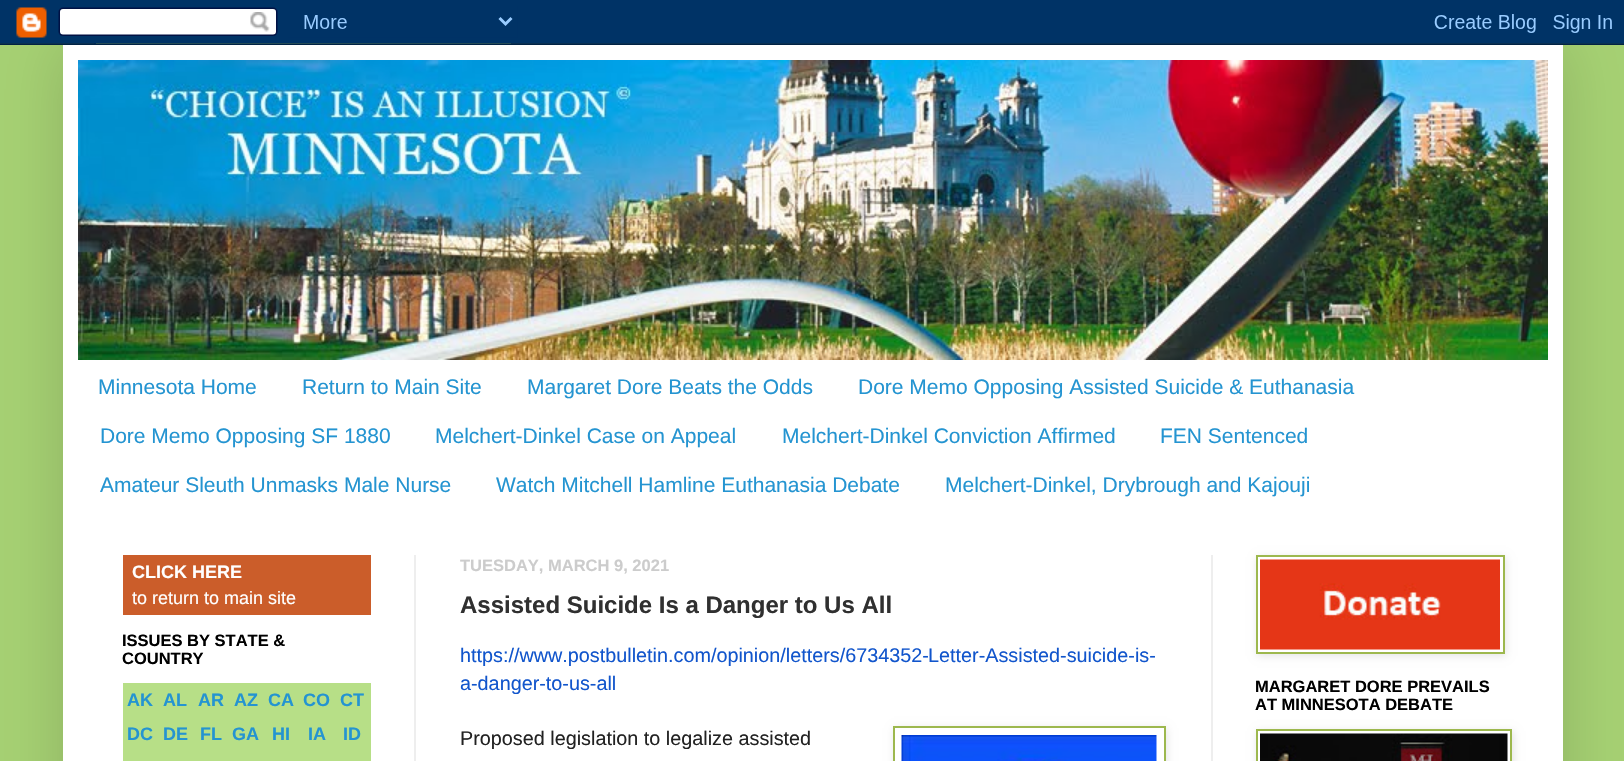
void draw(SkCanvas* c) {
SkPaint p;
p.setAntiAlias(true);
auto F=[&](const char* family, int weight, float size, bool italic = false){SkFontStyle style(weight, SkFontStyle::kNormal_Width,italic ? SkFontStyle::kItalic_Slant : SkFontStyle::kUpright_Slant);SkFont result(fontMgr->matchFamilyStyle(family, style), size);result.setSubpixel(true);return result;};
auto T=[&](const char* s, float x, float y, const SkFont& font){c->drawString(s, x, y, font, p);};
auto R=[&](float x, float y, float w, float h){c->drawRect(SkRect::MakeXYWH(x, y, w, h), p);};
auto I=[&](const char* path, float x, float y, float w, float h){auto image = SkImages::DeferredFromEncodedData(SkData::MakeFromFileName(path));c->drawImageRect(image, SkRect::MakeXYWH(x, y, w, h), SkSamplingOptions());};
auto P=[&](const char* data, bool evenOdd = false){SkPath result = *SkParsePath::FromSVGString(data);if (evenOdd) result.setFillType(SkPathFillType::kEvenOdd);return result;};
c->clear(0xffa6d173);
p.setColor(0x26000000);
p.setMaskFilter(SkMaskFilter::MakeBlur(kNormal_SkBlurStyle, 30));
c->drawRect(SkRect::MakeXYWH(63,45,1500,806),p);
p.setMaskFilter(nullptr);
I("1.png",0,0,1624,45);
p.setColor(0xffffffff);
R(63,45,1500,716);
I("2.png",78,60,1470,300);
auto f1 = F("Liberation Sans",400,21);
p.setColor(0xff2494d1);
T("Minnesota Home",98,394,f1);
T("Return to Main Site",302,394,f1);
T("Margaret Dore Beats the Odds",527,394,f1);
T("Dore Memo Opposing Assisted Suicide & Euthanasia",858,394,f1);
T("Dore Memo Opposing SF 1880",100,443,f1);
T("Melchert-Dinkel Case on Appeal",435,443,f1);
T("Melchert-Dinkel Conviction Affirmed",782,443,f1);
T("FEN Sentenced",1160,443,f1);
T("Amateur Sleuth Unmasks Male Nurse",100,492,f1);
T("Watch Mitchell Hamline Euthanasia Debate",496,492,f1);
T("Melchert-Dinkel, Drybrough and Kajouji",945,492,f1);
p.setColor(0xffeeeeee);
R(414,555,2,206);
R(1211,555,2,206);
p.setColor(0xffcb5d2a);
R(123,555,248,60);
auto f2 = F("Liberation Sans",700,18);
p.setColor(0xffffffff);
T("CLICK HERE",132,578,f2);
auto f3 = F("Liberation Sans",400,18);
T("to return to main site",132,604,f3);
auto f4 = F("Liberation Sans",700,16.5);
p.setColor(0xff000000);
T("ISSUES BY STATE &",122,646,f4);
T("COUNTRY",122,664,f4);
p.setColor(0xffb7df87);
R(123,683,248,34);
p.setColor(0xff2494d1);
T("AK",127,706,f2);
T("AL",163,706,f2);
T("AR",198,706,f2);
T("AZ",234,706,f2);
T("CA",268,706,f2);
T("CO",303,706,f2);
T("CT",340,706,f2);
p.setColor(0xffb7df87);
R(123,717,248,35);
p.setColor(0xff2494d1);
T("DC",127,740,f2);
T("DE",163,740,f2);
T("FL",200,740,f2);
T("GA",232,740,f2);
T("HI",272,740,f2);
T("IA",308,740,f2);
T("ID",343,740,f2);
p.setColor(0xffb7df87);
R(123,752,248,9);
p.setColor(0xffcccccc);
T("TUESDAY, MARCH 9, 2021",460,571,f4);
auto f5 = F("Liberation Sans",700,24);
p.setColor(0xff303030);
T("Assisted Suicide Is a Danger to Us All",460,613,f5);
auto f6 = F("Liberation Sans",400,19.8);
p.setColor(0xff1155cc);
T("https://www.postbulletin.com/opinion/letters/6734352-",460,662,f6);
T("Letter-Assisted-suicide-is-",928,662,f6);
T("a-danger-to-us-all",460,690,f6);
p.setColor(0xff222222);
T("Proposed legislation to legalize assisted",460,745,f6);
p.setColor(0x1a000000);
p.setMaskFilter(SkMaskFilter::MakeBlur(kNormal_SkBlurStyle, 4));
c->drawRect(SkRect::MakeXYWH(894,728,273,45),p);
p.setMaskFilter(nullptr);
p.setColor(0xffffffff);
c->drawRect(SkRect::MakeXYWH(894,727,271,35),p);
p.setStroke(true);
p.setStrokeWidth(2);
p.setColor(0xff9db84e);
c->drawRect(SkRect::MakeXYWH(894,727,271,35),p);
I("3.png",901,735,256,26);
p.setStroke(false);
p.setColor(0x1a000000);
p.setMaskFilter(SkMaskFilter::MakeBlur(kNormal_SkBlurStyle, 4));
c->drawRect(SkRect::MakeXYWH(1257,557,249,99),p);
p.setMaskFilter(nullptr);
p.setColor(0xffffffff);
c->drawRect(SkRect::MakeXYWH(1257,556,247,97),p);
p.setStroke(true);
p.setColor(0xff9db84e);
c->drawRect(SkRect::MakeXYWH(1257,556,247,97),p);
I("4.png",1260,559,240,91);
p.setStroke(false);
p.setColor(0xff000000);
T("MARGARET DORE PREVAILS",1255,692,f4);
T("AT MINNESOTA DEBATE",1255,710,f4);
c->save();
c->clipPath(P("M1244 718h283v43h-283zm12 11h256v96h-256z",true),true);
p.setColor(0x1a000000);
p.setMaskFilter(SkMaskFilter::MakeBlur(kNormal_SkBlurStyle, 4));
c->drawRect(SkRect::MakeXYWH(1257,731,257,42),p);
p.setMaskFilter(nullptr);
c->restore();
p.setStroke(true);
p.setColor(0xff9db84e);
c->drawRect(SkRect::MakeXYWH(1257,730,254,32),p);
I("5.png",1260,733,248,28);
}
